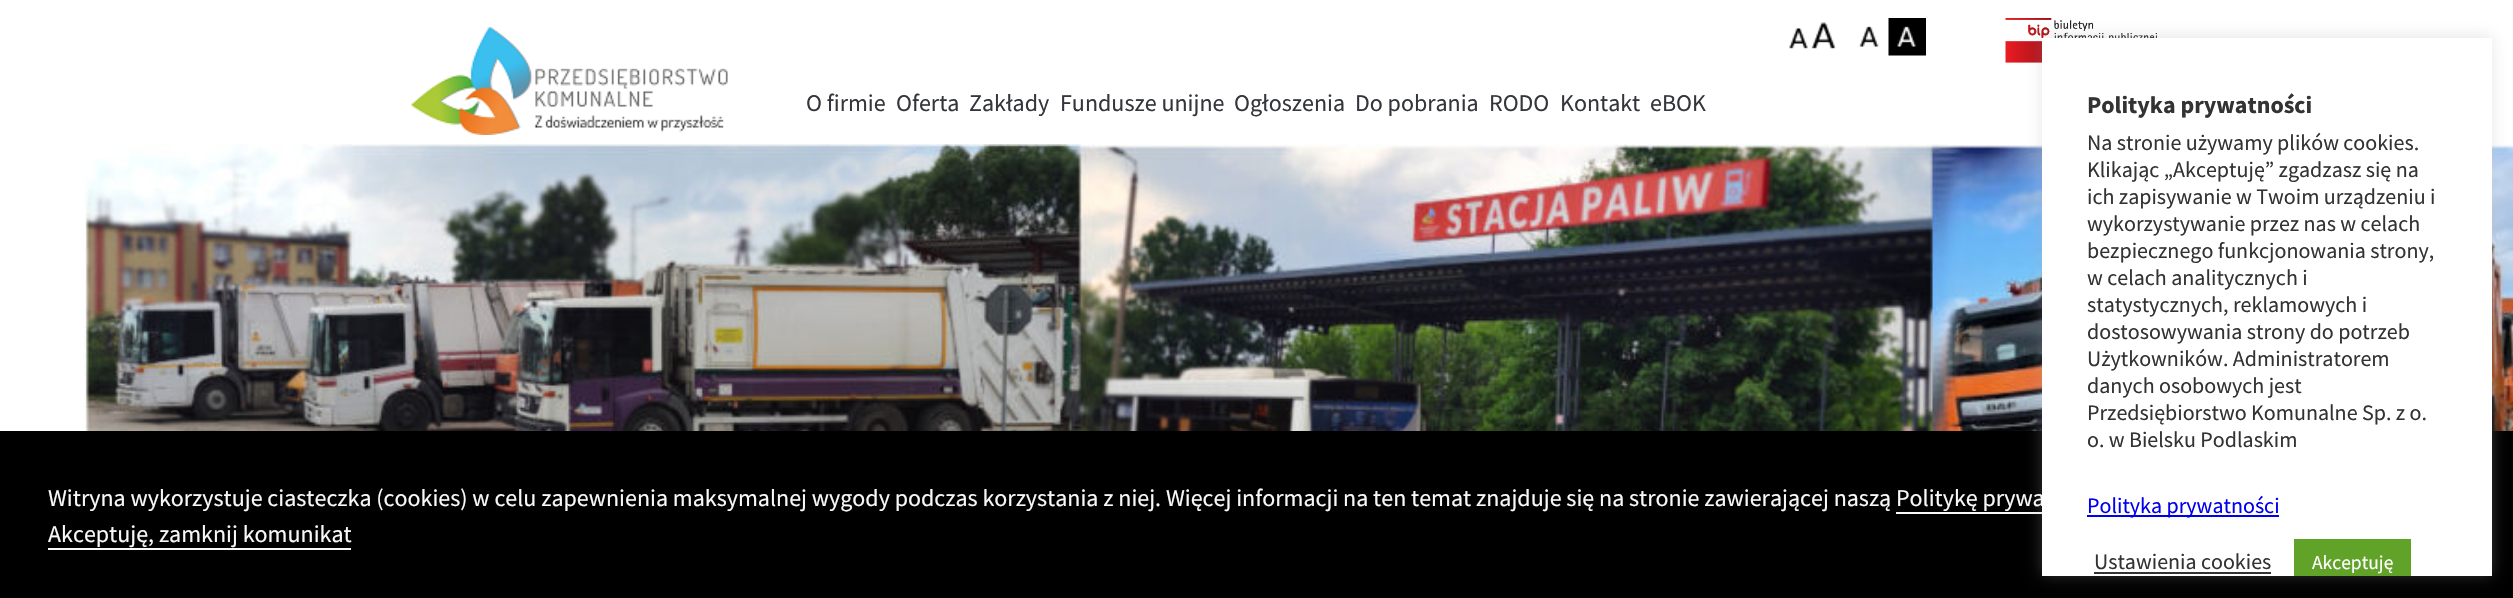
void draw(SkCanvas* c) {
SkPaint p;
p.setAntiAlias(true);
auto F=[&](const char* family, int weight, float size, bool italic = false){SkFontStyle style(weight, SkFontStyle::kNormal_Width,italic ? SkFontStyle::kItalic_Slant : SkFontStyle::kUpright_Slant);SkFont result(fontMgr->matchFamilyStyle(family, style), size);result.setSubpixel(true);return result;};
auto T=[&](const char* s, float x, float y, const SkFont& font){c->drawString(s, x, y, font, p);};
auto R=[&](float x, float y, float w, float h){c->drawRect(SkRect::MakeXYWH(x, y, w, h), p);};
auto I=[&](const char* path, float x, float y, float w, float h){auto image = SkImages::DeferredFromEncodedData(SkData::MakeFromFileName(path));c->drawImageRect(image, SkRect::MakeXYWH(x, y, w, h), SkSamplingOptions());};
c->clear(0xffffffff);
I("1.png",411,27,317,108);
auto f1 = F("Source Sans Pro",400,24);
p.setColor(0xff34363c);
T("O firmie",806,111,f1);
T("Oferta",896,111,f1);
T("Zakłady",969,111,f1);
T("Fundusze unijne",1060,111,f1);
T("Ogłoszenia",1234,111,f1);
T("Do pobrania",1355,111,f1);
T("RODO",1489,111,f1);
T("Kontakt",1560,111,f1);
T("eBOK",1650,111,f1);
I("2.png",1789,22,47,27);
I("3.png",1859,26,20,21);
I("4.png",1888,18,38,38);
I("5.png",2005,18,152,45);
I("6.png",84,144,2429,287);
p.setColor(0xff000000);
R(0,431,2513,167);
p.setColor(0xfff9f8f9);
R(1896,512,146,2);
p.setColor(0x4dacabab);
p.setMaskFilter(SkMaskFilter::MakeBlur(kNormal_SkBlurStyle, 7.5));
c->drawRect(SkRect::MakeXYWH(2042,36,450,539),p);
p.setMaskFilter(nullptr);
p.setColor(0xfff9f8f9);
T("Witryna wykorzystuje ciasteczka (cookies) w celu zapewnienia maksymalnej wygody podczas korzystania z niej. Więcej informacji na ten temat znajduje się na stronie zawierającej naszą Politykę prywa",48,506,f1);
p.setColor(0xffffffff);
R(2042,38,450,538);
auto f2 = F("Source Sans Pro",700,24);
p.setColor(0xff333333);
T("Polityka prywatności",2087,113,f2);
auto f3 = F("Source Sans Pro",400,22);
T("Na stronie używamy plików cookies.",2087,150,f3);
T("Klikając „Akceptuję” zgadzasz się na",2087,177,f3);
T("ich zapisywanie w Twoim urządzeniu i",2087,204,f3);
T("wykorzystywanie przez nas w celach",2087,231,f3);
T("bezpiecznego funkcjonowania strony,",2087,258,f3);
T("w celach analitycznych i",2087,285,f3);
T("statystycznych, reklamowych i",2087,312,f3);
T("dostosowywania strony do potrzeb",2087,339,f3);
T("Użytkowników. Administratorem",2087,366,f3);
T("danych osobowych jest",2087,393,f3);
T("Przedsiębiorstwo Komunalne Sp. z o.",2087,420,f3);
T("o. w Bielsku Podlaskim",2087,447,f3);
p.setColor(0xff0000ee);
R(2087,515,192,2);
T("Polityka prywatności",2087,513,f3);
p.setColor(0xff333333);
T("Ustawienia cookies",2094,569,f3);
R(2094,572,177,2);
p.setColor(0xff61a229);
R(2294,539,117,37);
auto f4 = F("Source Sans Pro",400,19.5);
p.setColor(0xffffffff);
T("Akceptuję",2312,569,f4);
p.setColor(0xfff9f8f9);
T("Akceptuję, zamknij komunikat",48,542,f1);
R(48,548,303,2);
}
